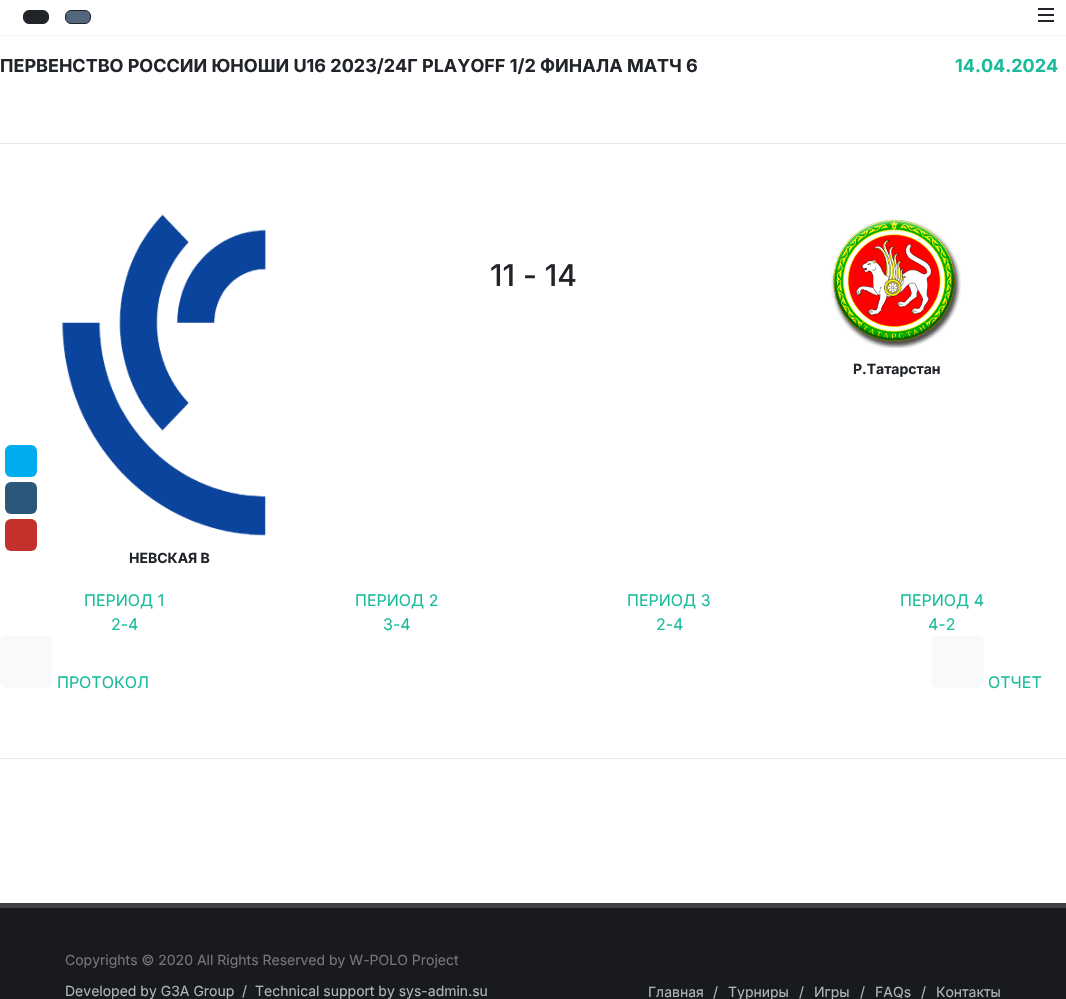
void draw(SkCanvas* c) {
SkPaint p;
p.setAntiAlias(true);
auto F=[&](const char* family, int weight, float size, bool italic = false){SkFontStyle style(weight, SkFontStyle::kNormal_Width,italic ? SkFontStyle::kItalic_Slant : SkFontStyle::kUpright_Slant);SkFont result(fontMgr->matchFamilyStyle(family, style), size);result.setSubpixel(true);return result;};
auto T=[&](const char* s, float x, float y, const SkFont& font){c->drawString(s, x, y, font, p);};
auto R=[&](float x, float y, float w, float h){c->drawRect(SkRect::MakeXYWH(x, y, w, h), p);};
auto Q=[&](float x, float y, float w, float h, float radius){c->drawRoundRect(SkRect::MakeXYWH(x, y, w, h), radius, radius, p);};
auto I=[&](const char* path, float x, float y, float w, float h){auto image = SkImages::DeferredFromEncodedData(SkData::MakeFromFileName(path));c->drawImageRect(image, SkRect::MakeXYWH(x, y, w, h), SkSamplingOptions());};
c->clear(0xffffffff);
p.setColor(0xfff5f5f5);
R(0,35,1066,1);
p.setColor(0xff212529);
c->drawRoundRect(SkRect::MakeXYWH(23.5,10.5,25,13),5.5,5.5,p);
p.setStroke(true);
p.setStrokeWidth(1);
c->drawRoundRect(SkRect::MakeXYWH(23.5,10.5,25,13),5.5,5.5,p);
p.setStroke(false);
p.setColor(0xff52677b);
c->drawRoundRect(SkRect::MakeXYWH(65.5,10.5,25,13),5.5,5.5,p);
p.setStroke(true);
p.setColor(0xff212529);
c->drawRoundRect(SkRect::MakeXYWH(65.5,10.5,25,13),5.5,5.5,p);
p.setStroke(false);
R(1038,14,16,2);
R(1038,8,16,2);
R(1038,20,16,2);
auto f1 = F("Inter",700,18);
T("ПЕРВЕНСТВО РОССИИ ЮНОШИ U16 2023/24Г PLAYOFF 1/2 ФИНАЛА МАТЧ 6",0,72,f1);
p.setColor(0xff1abc9c);
T("14.04.2024",955,72,f1);
p.setColor(0xffe6e6e6);
R(0,143,1066,1);
auto f2 = F("Inter",500,30);
p.setColor(0xff212529);
T("11 - 14",490,286,f2);
I("1.png",831,219,130,129);
auto f3 = F("Inter",700,14);
T("Р.Татарстан",853,374,f3);
I("2.png",62,214,204,322);
T("НЕВСКАЯ В",129,563,f3);
auto f4 = F("Inter",400,16);
p.setColor(0xff1abc9c);
T("ПЕРИОД 1",84,606,f4);
T("2-4",111,630,f4);
T("ПЕРИОД 2",355,606,f4);
T("3-4",383,630,f4);
T("ПЕРИОД 3",627,606,f4);
T("2-4",656,630,f4);
T("ПЕРИОД 4",900,606,f4);
T("4-2",928,630,f4);
p.setColor(0xfff8f9fa);
Q(0,636,52,52,6);
p.setColor(0xff1abc9c);
T("ПРОТОКОЛ",57,688,f4);
p.setColor(0xfff8f9fa);
Q(932,636,52,52,6);
p.setColor(0xff1abc9c);
T("ОТЧЕТ",988,688,f4);
p.setColor(0xffe6e6e6);
R(0,758,1066,1);
p.setColor(0xff00acee);
Q(5,445,32,32,6);
p.setColor(0xff2b587a);
Q(5,482,32,32,6);
p.setColor(0xffc4302b);
Q(5,519,32,32,6);
p.setColor(0xff414145);
R(0,903,1066,5);
p.setColor(0xff191a1d);
R(0,908,1066,91);
auto f5 = F("Inter",400,14);
p.setColor(0xff757677);
T("Copyrights © 2020 All Rights Reserved by W-POLO Project",65,965,f5);
p.setColor(0xffadb5bd);
T("Developed by G3A Group",65,996,f5);
T("/",242,996,f5);
T("Technical support by sys-admin.su",255,996,f5);
T("Главная",648,997,f5);
T("/",713,997,f5);
T("Турниры",728,997,f5);
T("/",799,997,f5);
T("Игры",814,997,f5);
T("/",860,997,f5);
T("FAQs",875,997,f5);
T("/",921,997,f5);
T("Контакты",936,997,f5);
}
